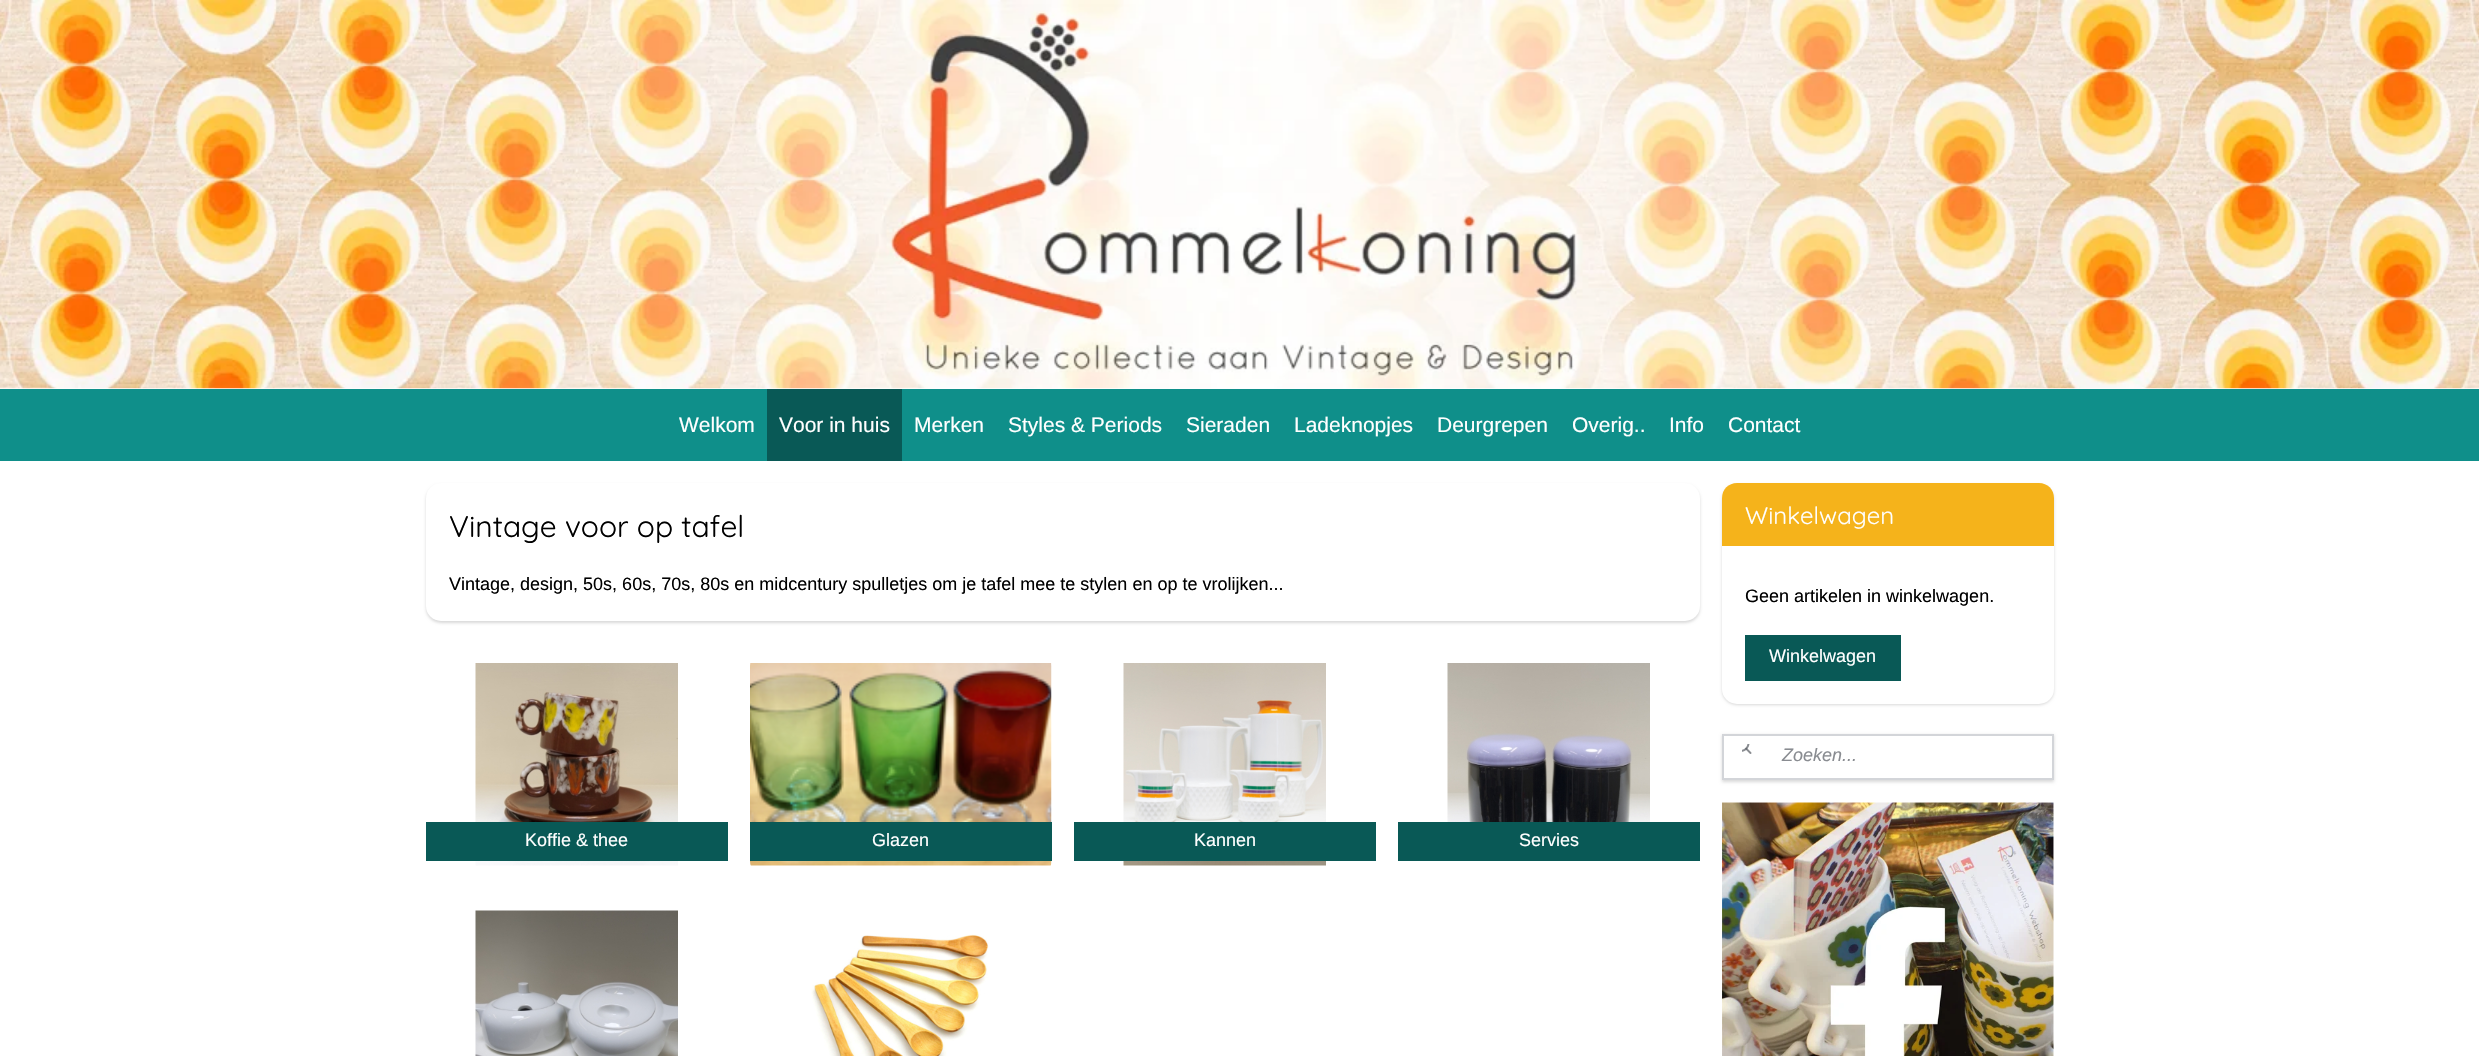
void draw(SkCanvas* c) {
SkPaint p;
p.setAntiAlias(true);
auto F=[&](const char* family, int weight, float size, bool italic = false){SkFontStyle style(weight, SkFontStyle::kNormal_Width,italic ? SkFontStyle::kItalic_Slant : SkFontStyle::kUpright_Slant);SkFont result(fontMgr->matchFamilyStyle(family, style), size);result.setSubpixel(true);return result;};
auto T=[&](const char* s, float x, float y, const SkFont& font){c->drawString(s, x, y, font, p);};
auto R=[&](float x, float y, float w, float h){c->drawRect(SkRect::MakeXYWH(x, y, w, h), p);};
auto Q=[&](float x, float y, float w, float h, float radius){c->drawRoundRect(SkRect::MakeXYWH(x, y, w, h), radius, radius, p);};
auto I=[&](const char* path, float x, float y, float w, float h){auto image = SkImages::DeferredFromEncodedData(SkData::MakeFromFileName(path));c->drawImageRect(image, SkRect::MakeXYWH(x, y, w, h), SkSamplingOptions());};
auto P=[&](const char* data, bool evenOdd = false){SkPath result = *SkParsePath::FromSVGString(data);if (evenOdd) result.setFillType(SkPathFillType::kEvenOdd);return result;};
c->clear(0xffffffff);
I("1.png",0,0,2479,389);
p.setColor(0xff0f8f8a);
R(0,389,2479,72);
auto f1 = F("Liberation Sans",400,21);
p.setColor(0xffffffff);
T("Welkom",679,432,f1);
p.setColor(0xff095956);
R(767,389,135,72);
p.setColor(0xffffffff);
T("Voor in huis",779,432,f1);
T("Merken",914,432,f1);
T("Styles & Periods",1008,432,f1);
T("Sieraden",1186,432,f1);
T("Ladeknopjes",1294,432,f1);
T("Deurgrepen",1437,432,f1);
T("Overig..",1572,432,f1);
T("Info",1669,432,f1);
T("Contact",1728,432,f1);
p.setColor(0x26000000);
p.setMaskFilter(SkMaskFilter::MakeBlur(kNormal_SkBlurStyle, 1.5));
c->drawRoundRect(SkRect::MakeXYWH(426,485,1274,138),15,15,p);
p.setMaskFilter(nullptr);
p.setColor(0xffffffff);
Q(426,483,1274,138,15);
auto f2 = F("Quicksand",400,30);
p.setColor(0xff000000);
T("Vintage voor op tafel",449,537,f2);
auto f3 = F("Liberation Sans",400,18);
T("Vintage, design, 50s, 60s, 70s, 80s en midcentury spulletjes om je tafel mee te stylen en op te vrolijken...",449,590,f3);
I("2.png",475,663,203,203);
p.setColor(0xff095956);
R(426,822,302,39);
p.setColor(0xffffffff);
T("Koffie & thee",525,846,f3);
I("3.png",750,663,302,203);
p.setColor(0xff095956);
R(750,822,302,39);
p.setColor(0xffffffff);
T("Glazen",872,846,f3);
I("4.png",1123,663,203,203);
p.setColor(0xff095956);
R(1074,822,302,39);
p.setColor(0xffffffff);
T("Kannen",1194,846,f3);
I("5.png",1447,663,203,159);
p.setColor(0xff095956);
R(1398,822,302,39);
p.setColor(0xffffffff);
T("Servies",1519,846,f3);
I("6.png",475,910,203,146);
I("7.png",811,934,178,122);
p.setColor(0x26000000);
p.setMaskFilter(SkMaskFilter::MakeBlur(kNormal_SkBlurStyle, 1.5));
c->drawRoundRect(SkRect::MakeXYWH(1722,485,332,220),15,15,p);
p.setMaskFilter(nullptr);
p.setColor(0xffffffff);
Q(1722,483,332,221,15);
p.setColor(0xfff5b31b);
c->drawPath(P("M1737 483h302c8.5 0 15 6.5 15 15v48h-332v-48c0-8.5 6.5-15 15-15z"),p);
auto f4 = F("Quicksand",400,24);
p.setColor(0xffffffff);
T("Winkelwagen",1745,524,f4);
p.setColor(0xff000000);
T("Geen artikelen in winkelwagen.",1745,602,f3);
p.setColor(0xff095956);
R(1745,635,156,46);
p.setColor(0xffffffff);
T("Winkelwagen",1769,662,f3);
p.setColor(0x26000000);
p.setMaskFilter(SkMaskFilter::MakeBlur(kNormal_SkBlurStyle, 1.5));
c->drawRect(SkRect::MakeXYWH(1722,735,332,47),p);
p.setMaskFilter(nullptr);
p.setColor(0xffffffff);
c->drawRect(SkRect::MakeXYWH(1723,735,330,44),p);
p.setStroke(true);
p.setStrokeWidth(2);
p.setColor(0xffd3d5d9);
c->drawRect(SkRect::MakeXYWH(1723,735,330,44),p);
I("8.png",1742,744,10,10);
auto f5 = F("Liberation Sans",400,18,true);
p.setStroke(false);
p.setColor(0xff898c91);
T("Zoeken...",1782,761,f5);
I("9.png",1722,802,332,254);
}
